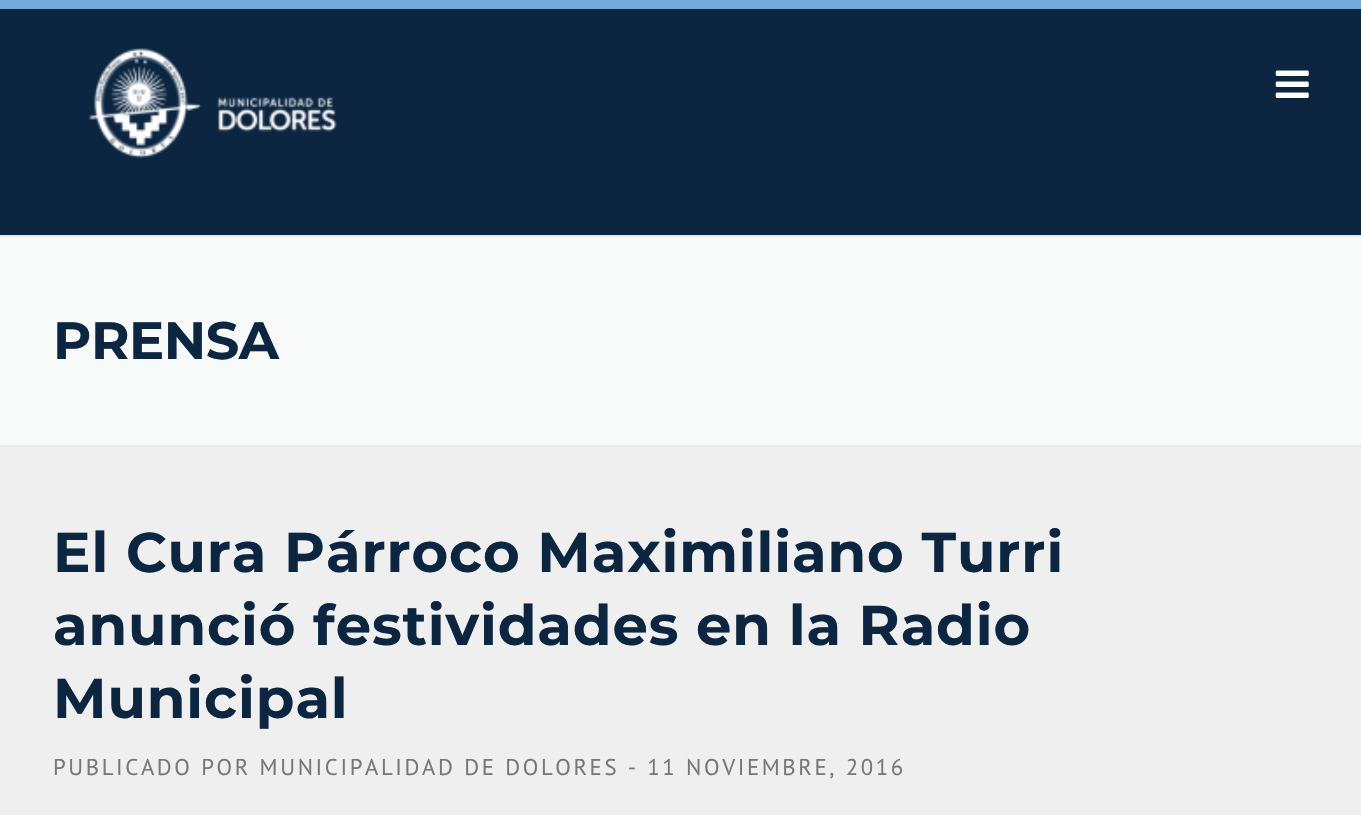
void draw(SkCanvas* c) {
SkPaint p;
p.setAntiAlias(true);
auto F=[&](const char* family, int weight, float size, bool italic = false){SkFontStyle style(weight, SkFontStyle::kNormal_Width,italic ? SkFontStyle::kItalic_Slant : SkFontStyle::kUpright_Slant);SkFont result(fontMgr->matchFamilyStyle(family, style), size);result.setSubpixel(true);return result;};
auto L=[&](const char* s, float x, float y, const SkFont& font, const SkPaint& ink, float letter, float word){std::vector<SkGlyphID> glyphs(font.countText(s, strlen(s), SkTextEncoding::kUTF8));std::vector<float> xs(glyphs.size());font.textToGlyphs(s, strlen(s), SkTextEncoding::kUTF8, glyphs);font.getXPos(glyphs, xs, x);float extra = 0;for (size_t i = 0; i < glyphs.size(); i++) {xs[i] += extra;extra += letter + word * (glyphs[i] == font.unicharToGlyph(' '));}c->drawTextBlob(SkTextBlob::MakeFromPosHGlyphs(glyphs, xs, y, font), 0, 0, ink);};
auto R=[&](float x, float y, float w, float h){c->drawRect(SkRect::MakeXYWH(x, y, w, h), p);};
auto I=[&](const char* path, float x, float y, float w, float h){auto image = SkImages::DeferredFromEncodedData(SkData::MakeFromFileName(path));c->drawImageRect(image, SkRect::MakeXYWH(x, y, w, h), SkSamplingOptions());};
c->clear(0xffefefef);
p.setColor(0xff0c2641);
R(0,9,1361,226);
p.setColor(0xff73a9db);
R(0,0,1361,9);
I("1.png",89,48,248,110);
I("2.png",1275,70,34,28);
p.setColor(0xfff8f9f9);
R(0,237,1361,208);
p.setColor(0xffe9e9e9);
R(0,235,1361,2);
R(0,445,1361,2);
auto f1 = F("Montserrat",700,52.5);
p.setColor(0xff0c2641);
L("PRENSA",53,359,f1,p,-.5,0);
auto f2 = F("Montserrat",700,56);
L("El Cura Párroco Maximiliano Turri",53,572,f2,p,.9,0);
L("anunció festividades en la Radio",53,645,f2,p,.9,0);
L("Municipal",53,718,f2,p,.9,0);
auto f3 = F("PT Sans",400,22.75);
p.setColor(0xff777777);
L("PUBLICADO POR MUNICIPALIDAD DE DOLORES - 11 NOVIEMBRE, 2016",53,775,f3,p,2.62,0);
}
